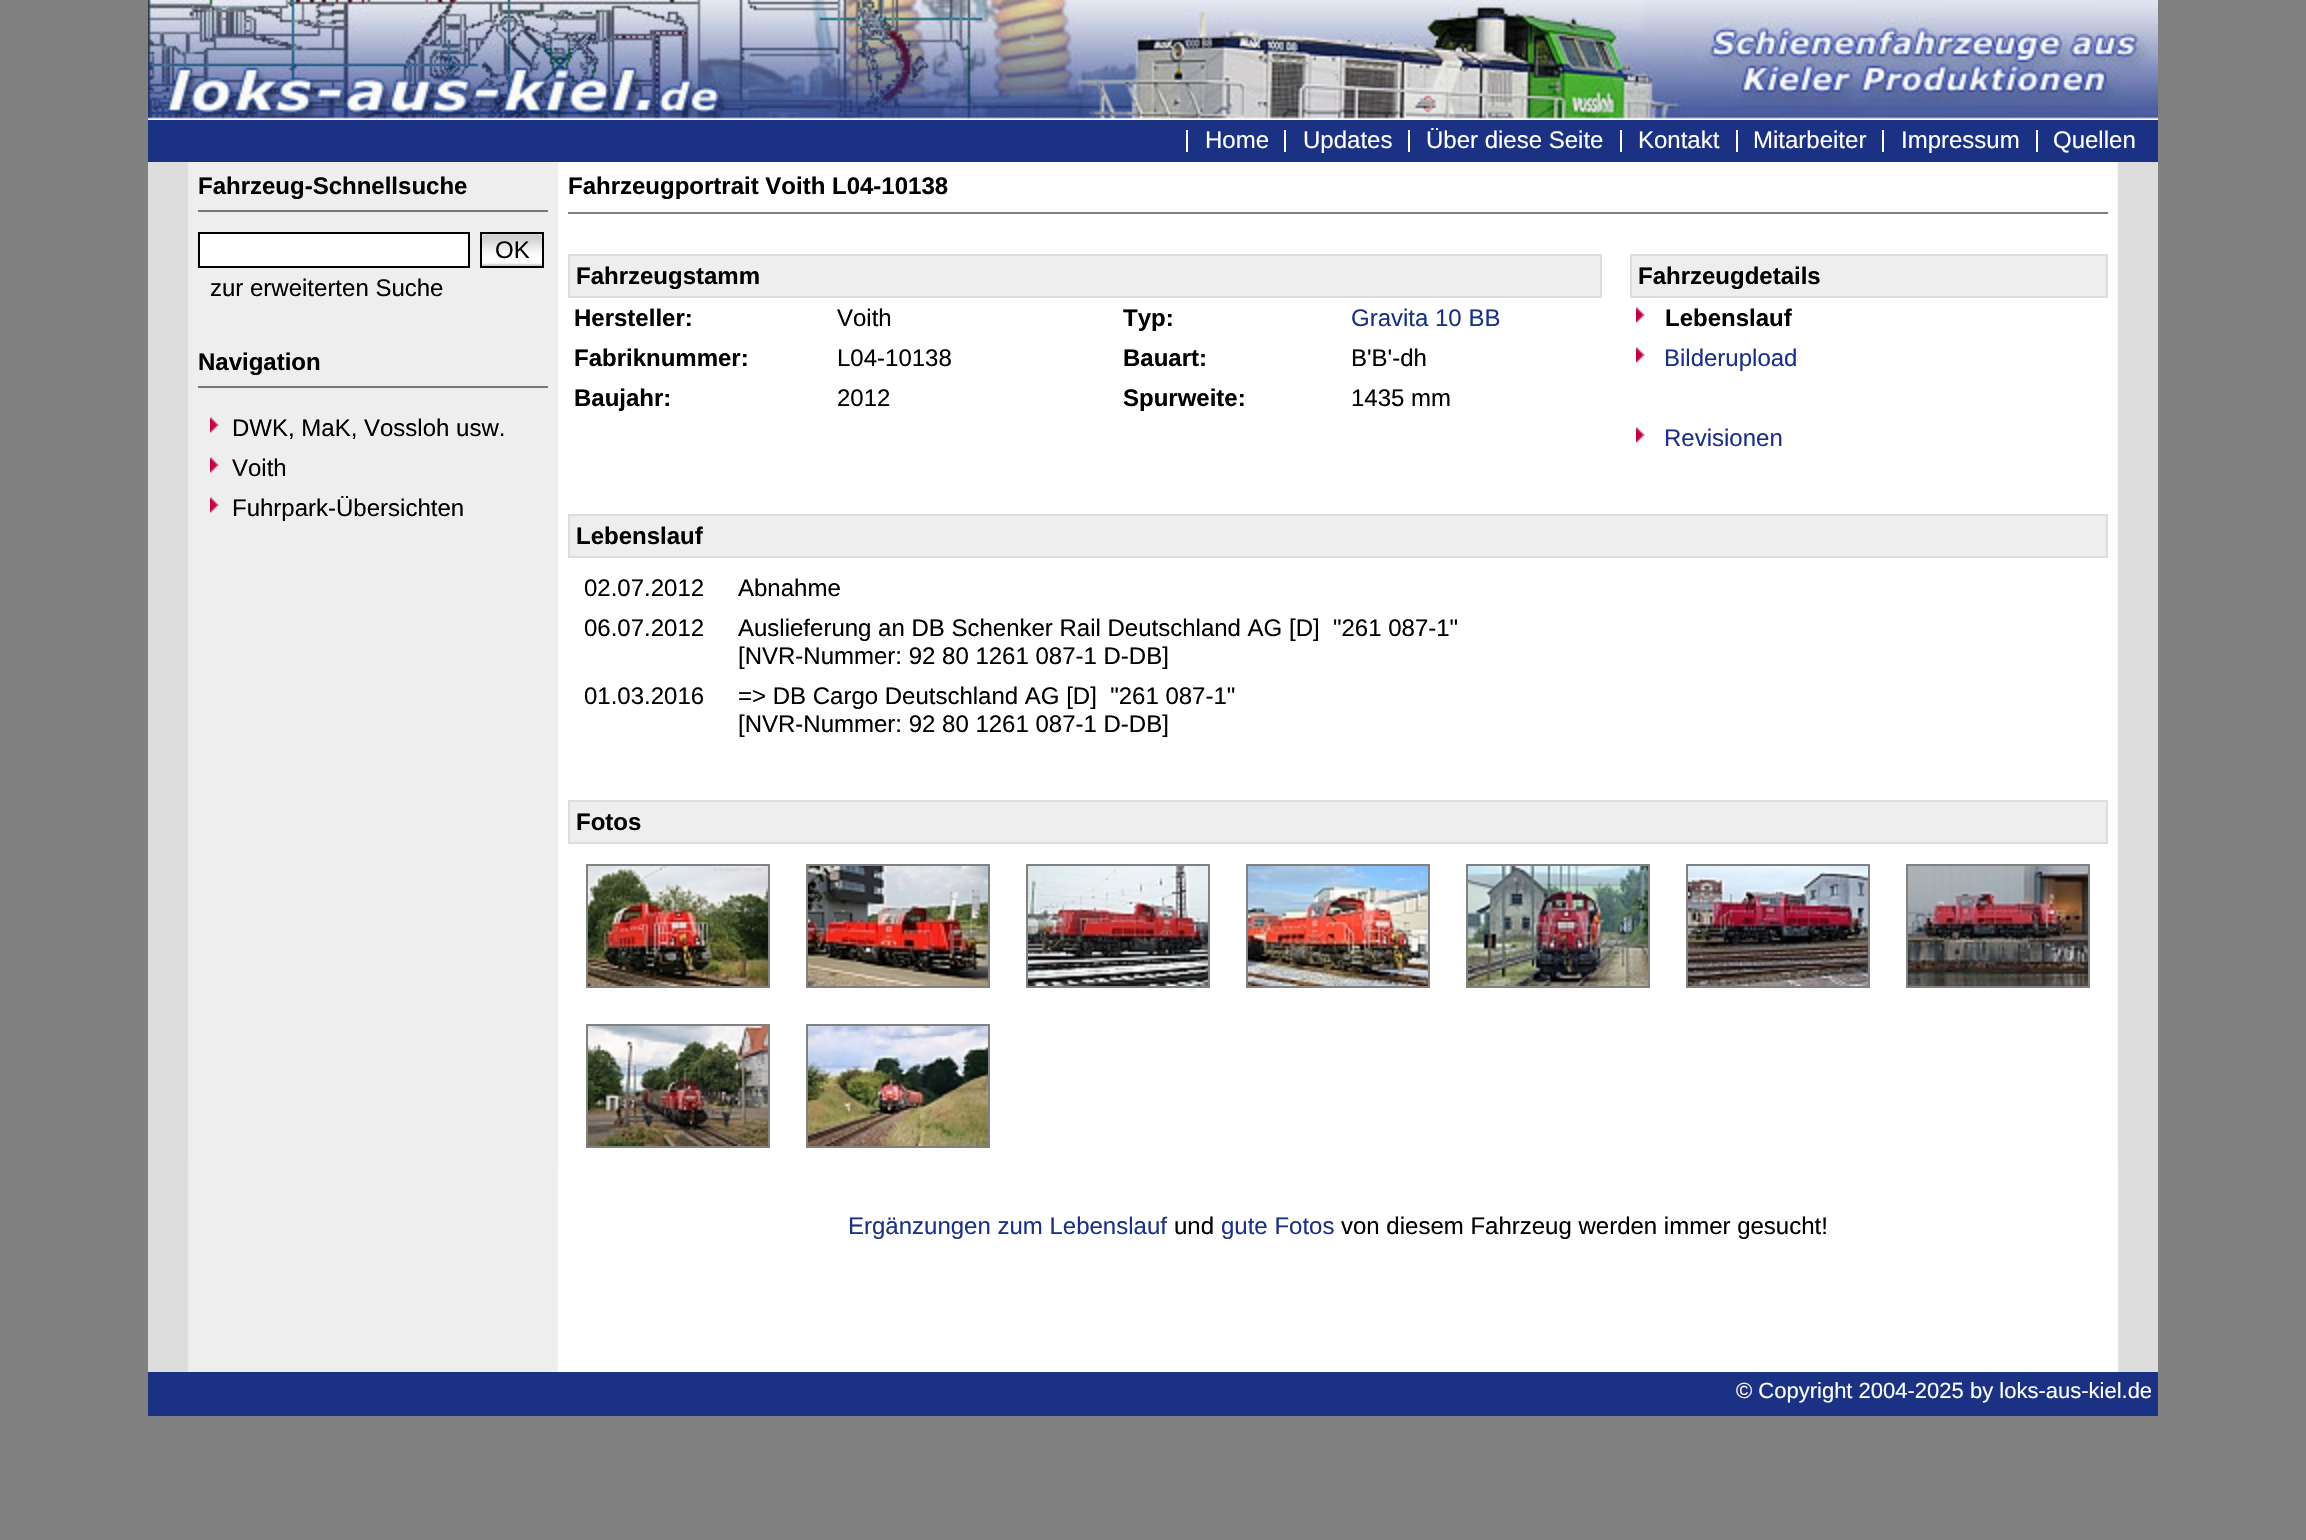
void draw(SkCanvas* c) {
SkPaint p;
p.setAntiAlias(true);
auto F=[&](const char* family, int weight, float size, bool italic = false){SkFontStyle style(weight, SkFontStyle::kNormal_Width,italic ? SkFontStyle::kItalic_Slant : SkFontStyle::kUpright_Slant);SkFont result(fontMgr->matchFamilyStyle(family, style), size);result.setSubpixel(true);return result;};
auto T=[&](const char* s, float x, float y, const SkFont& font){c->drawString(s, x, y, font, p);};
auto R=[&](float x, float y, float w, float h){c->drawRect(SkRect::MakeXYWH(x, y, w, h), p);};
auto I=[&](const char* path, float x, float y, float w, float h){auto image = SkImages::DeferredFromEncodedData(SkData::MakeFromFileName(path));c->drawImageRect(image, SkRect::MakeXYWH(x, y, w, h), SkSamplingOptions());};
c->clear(0xff808080);
I("1.png",148,162,2010,1210);
I("2.png",148,0,2010,120);
p.setColor(0xff1b3284);
R(148,120,2010,42);
auto f1 = F("Liberation Sans",400,24);
p.setColor(0xffffffff);
T("Home",1205,148,f1);
R(1186,130,2,22);
T("Updates",1303,148,f1);
R(1284,130,2,22);
T("Über diese Seite",1426,148,f1);
R(1408,130,2,22);
T("Kontakt",1638,148,f1);
R(1620,130,2,22);
T("Mitarbeiter",1753,148,f1);
R(1736,130,2,22);
T("Impressum",1901,148,f1);
R(1882,130,2,22);
T("Quellen",2053,148,f1);
R(2036,130,2,22);
p.setColor(0xffdddddd);
R(187,162,1,1000);
p.setColor(0xffeeeeee);
R(188,162,370,1000);
p.setColor(0xff777777);
R(198,210,350,2);
auto f2 = F("Liberation Sans",700,24);
p.setColor(0xff000000);
T("Fahrzeug-Schnellsuche",198,194,f2);
p.setColor(0xffffffff);
c->drawRect(SkRect::MakeXYWH(199,233,270,34),p);
p.setStroke(true);
p.setStrokeWidth(2);
p.setColor(0xff000000);
c->drawRect(SkRect::MakeXYWH(199,233,270,34),p);
I("3.png",482,234,60,32);
c->drawRect(SkRect::MakeXYWH(481,233,62,34),p);
p.setStroke(false);
T("OK",495,258,f1);
T("zur erweiterten Suche",210,296,f1);
p.setColor(0xff777777);
R(198,386,350,2);
p.setColor(0xff000000);
T("Navigation",198,370,f2);
I("4.png",210,417,9,16);
T("DWK, MaK, Vossloh usw.",232,436,f1);
I("4.png",210,457,9,16);
T("Voith",232,476,f1);
I("4.png",210,497,9,16);
T("Fuhrpark-Übersichten",232,516,f1);
T("Fahrzeugportrait Voith L04-10138",568,194,f2);
p.setColor(0xff808080);
R(568,212,1540,2);
p.setColor(0xffeeeeee);
c->drawRect(SkRect::MakeXYWH(569,255,1032,42),p);
p.setStroke(true);
p.setColor(0xffdddddd);
c->drawRect(SkRect::MakeXYWH(569,255,1032,42),p);
p.setStroke(false);
p.setColor(0xff000000);
T("Fahrzeugstamm",576,284,f2);
p.setColor(0xffeeeeee);
c->drawRect(SkRect::MakeXYWH(1631,255,476,42),p);
p.setStroke(true);
p.setColor(0xffdddddd);
c->drawRect(SkRect::MakeXYWH(1631,255,476,42),p);
p.setStroke(false);
p.setColor(0xff000000);
T("Fahrzeugdetails",1638,284,f2);
T("Hersteller:",574,326,f2);
T("Voith",837,326,f1);
T("Typ:",1123,326,f2);
p.setColor(0xff1b3284);
T("Gravita 10 BB",1351,326,f1);
I("5.png",1636,307,9,16);
p.setColor(0xff000000);
T("Lebenslauf",1665,326,f2);
T("Fabriknummer:",574,366,f2);
T("L04-10138",837,366,f1);
T("Bauart:",1123,366,f2);
T("B'B'-dh",1351,366,f1);
I("5.png",1636,347,9,16);
p.setColor(0xff1b3284);
T("Bilderupload",1664,366,f1);
p.setColor(0xff000000);
T("Baujahr:",574,406,f2);
T("2012",837,406,f1);
T("Spurweite:",1123,406,f2);
T("1435 mm",1351,406,f1);
I("5.png",1636,427,9,16);
p.setColor(0xff1b3284);
T("Revisionen",1664,446,f1);
p.setColor(0xffeeeeee);
c->drawRect(SkRect::MakeXYWH(569,515,1538,42),p);
p.setStroke(true);
p.setColor(0xffdddddd);
c->drawRect(SkRect::MakeXYWH(569,515,1538,42),p);
p.setStroke(false);
p.setColor(0xff000000);
T("Lebenslauf",576,544,f2);
T("02.07.2012",584,596,f1);
T("Abnahme",738,596,f1);
T("06.07.2012",584,636,f1);
T("Auslieferung an DB Schenker Rail Deutschland AG [D]  \"261 087-1\"",738,636,f1);
T("[NVR-Nummer: 92 80 1261 087-1 D-DB]",738,664,f1);
T("01.03.2016",584,704,f1);
T("=> DB Cargo Deutschland AG [D]  \"261 087-1\"",738,704,f1);
T("[NVR-Nummer: 92 80 1261 087-1 D-DB]",738,732,f1);
p.setColor(0xffeeeeee);
c->drawRect(SkRect::MakeXYWH(569,801,1538,42),p);
p.setStroke(true);
p.setColor(0xffdddddd);
c->drawRect(SkRect::MakeXYWH(569,801,1538,42),p);
p.setStroke(false);
p.setColor(0xff000000);
T("Fotos",576,830,f2);
p.setStroke(true);
p.setColor(0xff808080);
c->drawRect(SkRect::MakeXYWH(587,865,182,122),p);
I("6.png",588,866,180,120);
c->drawRect(SkRect::MakeXYWH(807,865,182,122),p);
I("7.png",808,866,180,120);
c->drawRect(SkRect::MakeXYWH(1027,865,182,122),p);
I("8.png",1028,866,180,120);
c->drawRect(SkRect::MakeXYWH(1247,865,182,122),p);
I("9.png",1248,866,180,120);
c->drawRect(SkRect::MakeXYWH(1467,865,182,122),p);
I("10.png",1468,866,180,120);
c->drawRect(SkRect::MakeXYWH(1687,865,182,122),p);
I("11.png",1688,866,180,120);
c->drawRect(SkRect::MakeXYWH(1907,865,182,122),p);
I("12.png",1908,866,180,120);
c->drawRect(SkRect::MakeXYWH(587,1025,182,122),p);
I("13.png",588,1026,180,120);
c->drawRect(SkRect::MakeXYWH(807,1025,182,122),p);
I("14.png",808,1026,180,120);
p.setStroke(false);
p.setColor(0xff1b3284);
T("Ergänzungen zum Lebenslauf",848,1234,f1);
p.setColor(0xff000000);
T("und",1174,1234,f1);
p.setColor(0xff1b3284);
T("gute Fotos",1221,1234,f1);
p.setColor(0xff000000);
T("von diesem Fahrzeug werden immer gesucht!",1341,1234,f1);
p.setColor(0xffdddddd);
R(2118,162,1,1000);
p.setColor(0xff1b3284);
R(148,1372,2010,44);
auto f3 = F("Liberation Sans",400,22);
p.setColor(0xffffffff);
T("© Copyright 2004-2025 by loks-aus-kiel.de",1736,1398,f3);
}
